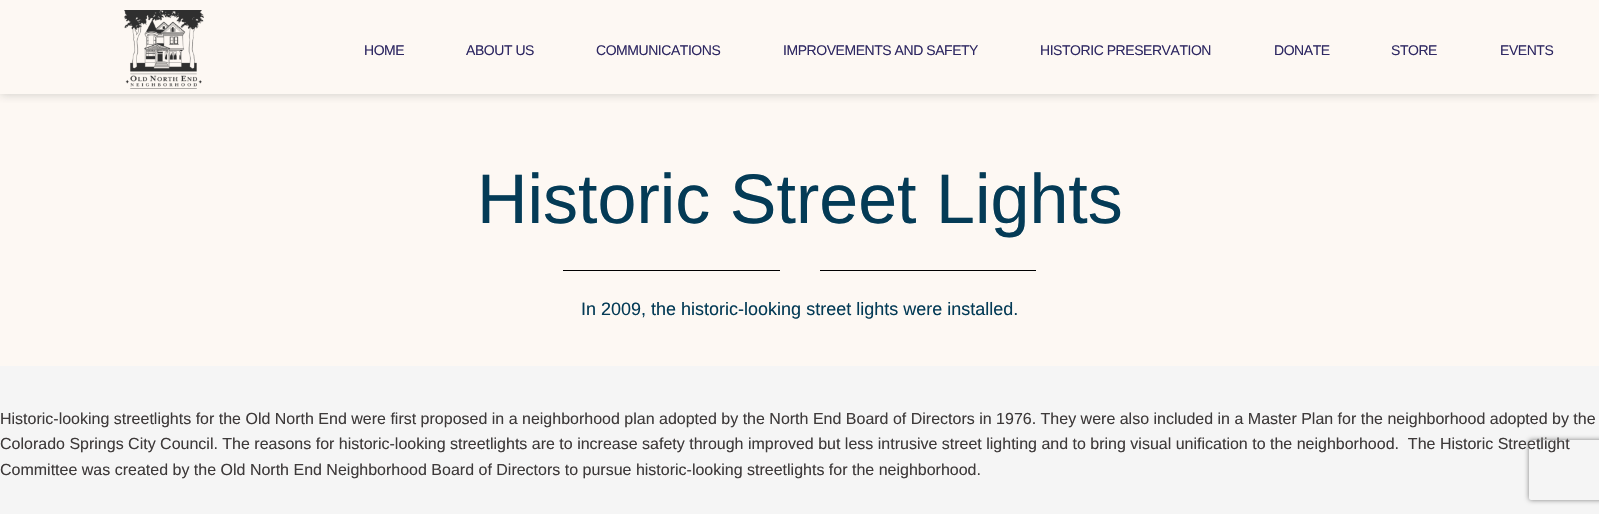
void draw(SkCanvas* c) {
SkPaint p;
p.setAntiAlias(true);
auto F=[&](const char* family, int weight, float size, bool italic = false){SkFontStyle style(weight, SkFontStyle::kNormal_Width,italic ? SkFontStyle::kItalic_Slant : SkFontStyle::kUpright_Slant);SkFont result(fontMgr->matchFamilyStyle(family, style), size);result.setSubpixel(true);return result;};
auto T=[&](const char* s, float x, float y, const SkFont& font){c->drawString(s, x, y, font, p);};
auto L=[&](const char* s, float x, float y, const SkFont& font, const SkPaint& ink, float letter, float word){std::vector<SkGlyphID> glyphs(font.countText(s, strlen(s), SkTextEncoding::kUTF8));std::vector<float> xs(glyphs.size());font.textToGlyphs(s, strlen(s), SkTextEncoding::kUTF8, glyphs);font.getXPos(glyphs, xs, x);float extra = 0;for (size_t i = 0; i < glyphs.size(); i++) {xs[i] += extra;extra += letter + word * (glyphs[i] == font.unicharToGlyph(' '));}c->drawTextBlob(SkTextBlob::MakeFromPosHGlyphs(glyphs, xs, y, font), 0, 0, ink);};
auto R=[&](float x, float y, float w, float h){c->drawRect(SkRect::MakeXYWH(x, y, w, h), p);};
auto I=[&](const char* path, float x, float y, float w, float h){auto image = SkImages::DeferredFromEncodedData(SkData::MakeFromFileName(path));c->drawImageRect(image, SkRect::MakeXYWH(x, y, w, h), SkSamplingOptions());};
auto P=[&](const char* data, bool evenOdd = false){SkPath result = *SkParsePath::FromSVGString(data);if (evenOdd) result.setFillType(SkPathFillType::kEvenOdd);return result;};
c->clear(0xfffdf8f3);
c->save();
c->clipRect(SkRect::MakeXYWH(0,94,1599,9));
p.setColor(0x809a9794);
p.setMaskFilter(SkMaskFilter::MakeBlur(kNormal_SkBlurStyle, 5));
c->drawRect(SkRect::MakeXYWH(0,0,1599,94),p);
p.setMaskFilter(nullptr);
c->restore();
I("1.png",124,10,80,79);
auto f1 = F("Liberation Sans",400,14);
p.setColor(0xff2f2963);
L("HOME",364,55,f1,p,-.45,0);
L("ABOUT US",466,55,f1,p,-.45,0);
L("COMMUNICATIONS",596,55,f1,p,-.45,0);
L("IMPROVEMENTS AND SAFETY",783,55,f1,p,-.45,0);
L("HISTORIC PRESERVATION",1040,55,f1,p,-.45,0);
L("DONATE",1274,55,f1,p,-.45,0);
L("STORE",1391,55,f1,p,-.45,0);
L("EVENTS",1500,55,f1,p,-.45,0);
auto f2 = F("Liberation Sans",400,70);
p.setColor(0xff043b56);
T("Historic Street Lights",477,223,f2);
p.setColor(0xff000000);
R(563,270,217,1);
R(820,270,216,1);
auto f3 = F("Liberation Sans",400,18);
p.setColor(0xff043b56);
T("In 2009, the historic-looking street lights were installed.",581,315,f3);
p.setColor(0xfff5f5f5);
R(0,366,1599,148);
auto f4 = F("Liberation Sans",400,16);
p.setColor(0xff3e3a3a);
T("Historic-looking streetlights for the Old North End were first proposed in a neighborhood plan adopted by the North End Board of Directors in 1976. They were also included in a Master Plan for the neighborhood adopted by the",0,424,f4);
T("Colorado Springs City Council. The reasons for historic-looking streetlights are to increase safety through improved but less intrusive street lighting and to bring visual unification to the neighborhood.  The Historic Streetlight",0,449,f4);
T("Committee was created by the Old North End Neighborhood Board of Directors to pursue historic-looking streetlights for the neighborhood.",0,475,f4);
c->save();
c->clipPath(P("M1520 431h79v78h-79zm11 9h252c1 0 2 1 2 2v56c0 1-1 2-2 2h-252c-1 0-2-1-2-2v-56c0-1 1-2 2-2z",true),true);
p.setColor(0xff808080);
p.setMaskFilter(SkMaskFilter::MakeBlur(kNormal_SkBlurStyle, 2.5));
c->drawRoundRect(SkRect::MakeXYWH(1529,440,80,60),2,2,p);
p.setMaskFilter(nullptr);
c->restore();
}
